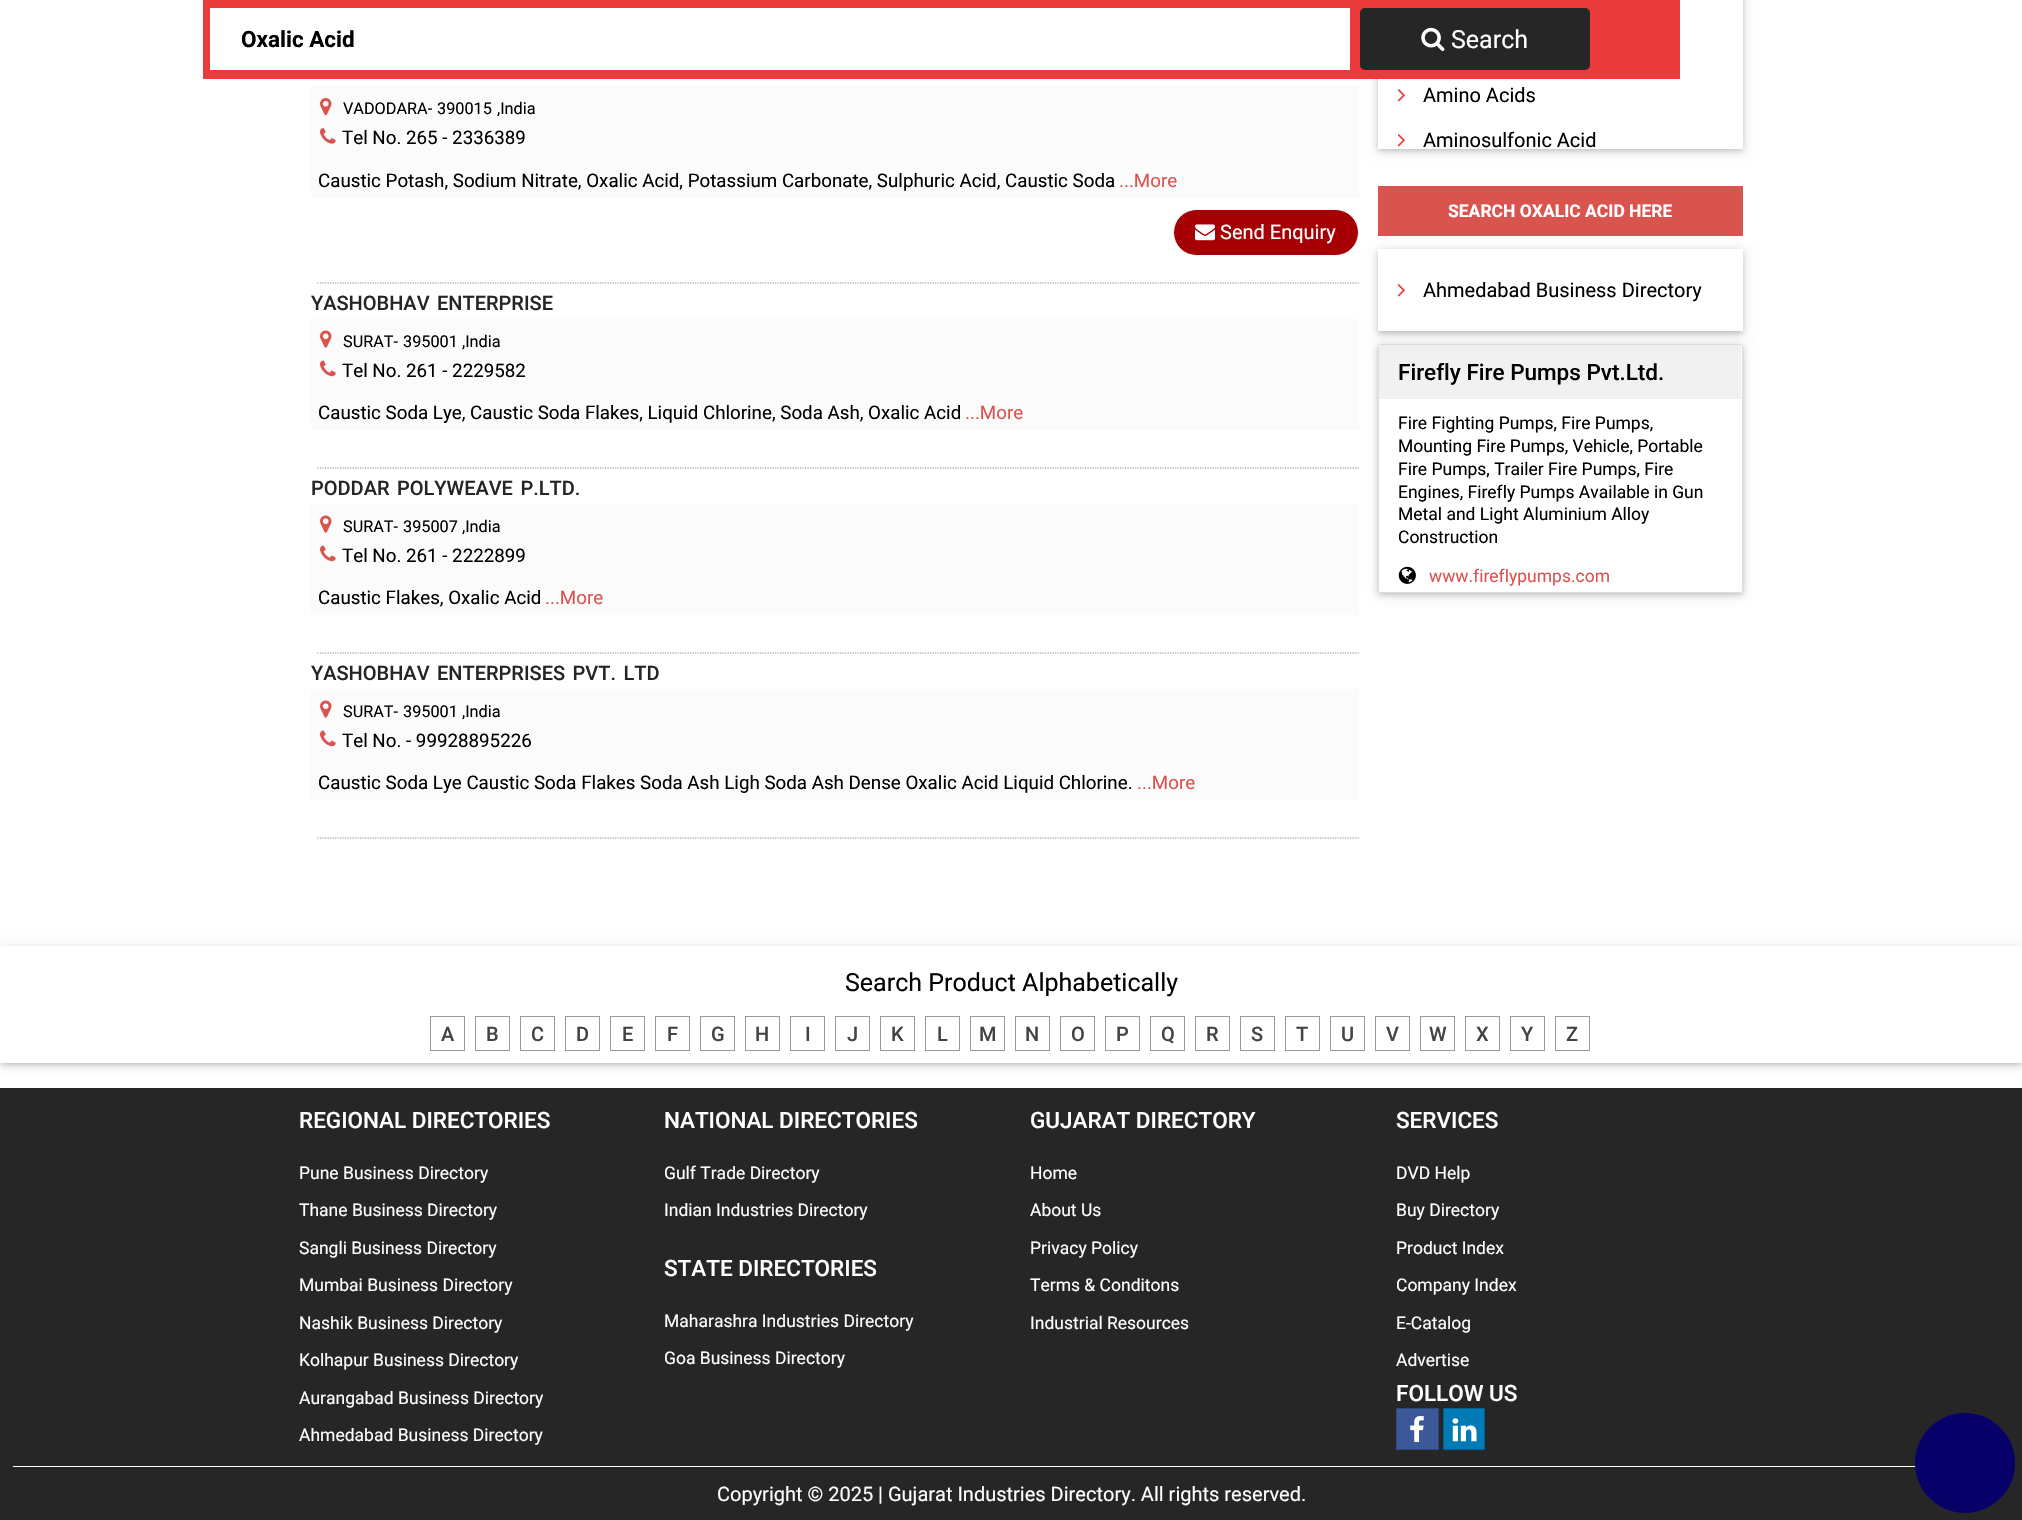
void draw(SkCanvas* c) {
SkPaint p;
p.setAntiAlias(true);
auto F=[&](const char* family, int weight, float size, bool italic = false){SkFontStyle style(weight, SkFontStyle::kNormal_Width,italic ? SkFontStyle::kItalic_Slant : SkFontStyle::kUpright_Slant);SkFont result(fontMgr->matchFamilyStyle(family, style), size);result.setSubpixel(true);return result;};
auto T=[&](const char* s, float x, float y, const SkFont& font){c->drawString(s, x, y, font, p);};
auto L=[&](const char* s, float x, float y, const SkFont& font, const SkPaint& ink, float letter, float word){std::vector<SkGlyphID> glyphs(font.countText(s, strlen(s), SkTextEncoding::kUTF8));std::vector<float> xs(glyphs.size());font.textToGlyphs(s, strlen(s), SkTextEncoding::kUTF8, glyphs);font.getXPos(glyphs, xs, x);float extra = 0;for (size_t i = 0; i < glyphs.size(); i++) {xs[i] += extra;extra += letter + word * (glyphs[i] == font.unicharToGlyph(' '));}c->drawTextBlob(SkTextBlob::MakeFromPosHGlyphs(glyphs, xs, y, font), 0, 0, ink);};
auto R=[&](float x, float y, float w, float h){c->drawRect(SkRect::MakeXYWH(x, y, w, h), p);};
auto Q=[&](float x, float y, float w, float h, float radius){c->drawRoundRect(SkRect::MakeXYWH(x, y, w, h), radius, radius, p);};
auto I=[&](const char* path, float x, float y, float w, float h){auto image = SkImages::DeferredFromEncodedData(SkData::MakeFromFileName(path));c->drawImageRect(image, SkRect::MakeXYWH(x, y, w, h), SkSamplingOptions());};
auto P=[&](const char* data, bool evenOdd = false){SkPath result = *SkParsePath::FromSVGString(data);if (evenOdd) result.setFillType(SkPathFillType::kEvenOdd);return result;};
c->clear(0xffffffff);
p.setColor(0x1f000000);
p.setMaskFilter(SkMaskFilter::MakeBlur(kNormal_SkBlurStyle, 6));
c->drawRect(SkRect::MakeXYWH(1378,-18,365,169),p);
p.setMaskFilter(nullptr);
p.setColor(0x29000000);
p.setMaskFilter(SkMaskFilter::MakeBlur(kNormal_SkBlurStyle, 2.5));
c->drawRect(SkRect::MakeXYWH(1378,-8,365,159),p);
p.setMaskFilter(nullptr);
p.setColor(0xffffffff);
R(1378,0,365,149);
p.setColor(0xffea3a3c);
R(203,0,1477,79);
p.setColor(0xffffffff);
R(210,8,1140,62);
auto f1 = F("Roboto",700,22.5);
p.setColor(0xff000000);
T("Oxalic Acid",241,47,f1);
p.setColor(0xff262626);
Q(1360,8,230,62,5);
I("1.png",1421,27,24,25);
auto f2 = F("Roboto",400,25);
p.setColor(0xffffffff);
T("Search",1451,48,f2);
p.setColor(0xfffcfbfb);
R(311,86,1048,112);
I("2.png",320,98,12,18);
auto f3 = F("Roboto",400,16.25);
p.setColor(0xff000000);
T("VADODARA-",343,114,f3);
T("390015",437,114,f3);
T(",India",497,114,f3);
I("3.png",320,128,16,16);
auto f4 = F("Roboto",400,18.75);
T("Tel No. 265 - 2336389",342,144,f4);
T("Caustic Potash, Sodium Nitrate, Oxalic Acid, Potassium Carbonate, Sulphuric Acid, Caustic Soda",318,187,f4);
p.setColor(0xffd9534f);
T("...More",1119,187,f4);
p.setColor(0xffa70004);
c->drawRoundRect(SkRect::MakeXYWH(1173.5,209.5,185,46),23,23,p);
p.setStroke(true);
p.setStrokeWidth(1);
p.setColor(0xffffffff);
c->drawRoundRect(SkRect::MakeXYWH(1173.5,209.5,185,46),23,23,p);
I("4.png",1195,224,20,17);
auto f5 = F("Roboto",400,20);
p.setStroke(false);
T("Send Enquiry",1220,239,f5);
p.setStroke(true);
p.setStrokeWidth(1.2);
p.setColor(0xff8c8b8b);
p.setPathEffect(SkDashPathEffect::Make({{1.25f,1.25f}}, 0));
c->drawPath(P("M317.5 283h1041.5"),p);
p.setPathEffect(nullptr);
auto f6 = F("Roboto",500,20);
p.setStroke(false);
p.setColor(0xff252525);
L("YASHOBHAV ENTERPRISE",311,310,f6,p,0,2.5);
p.setColor(0xfffcfbfb);
R(311,319,1048,111);
I("5.png",320,330,12,18);
p.setColor(0xff000000);
T("SURAT-",343,347,f3);
T("395001",403,347,f3);
T(",India",462,347,f3);
I("6.png",320,360,16,17);
T("Tel No. 261 - 2229582",342,377,f4);
T("Caustic Soda Lye, Caustic Soda Flakes, Liquid Chlorine, Soda Ash, Oxalic Acid",318,419,f4);
p.setColor(0xffd9534f);
T("...More",965,419,f4);
p.setStroke(true);
p.setColor(0xff8c8b8b);
p.setPathEffect(SkDashPathEffect::Make({{1.25f,1.25f}}, 0));
c->drawPath(P("M317.5 468h1041.5"),p);
p.setPathEffect(nullptr);
p.setStroke(false);
p.setColor(0xff252525);
L("PODDAR POLYWEAVE P.LTD.",311,495,f6,p,0,2.5);
p.setColor(0xfffcfbfb);
R(311,504,1048,111);
I("5.png",320,515,12,18);
p.setColor(0xff000000);
T("SURAT-",343,532,f3);
T("395007",403,532,f3);
T(",India",462,532,f3);
I("6.png",320,545,16,17);
T("Tel No. 261 - 2222899",342,562,f4);
T("Caustic Flakes, Oxalic Acid",318,604,f4);
p.setColor(0xffd9534f);
T("...More",545,604,f4);
p.setStroke(true);
p.setColor(0xff8c8b8b);
p.setPathEffect(SkDashPathEffect::Make({{1.25f,1.25f}}, 0));
c->drawPath(P("M317.5 653h1041.5"),p);
p.setPathEffect(nullptr);
p.setStroke(false);
p.setColor(0xff252525);
L("YASHOBHAV ENTERPRISES PVT. LTD",311,680,f6,p,0,2.5);
p.setColor(0xfffcfbfb);
R(311,689,1048,111);
I("5.png",320,700,12,18);
p.setColor(0xff000000);
T("SURAT-",343,717,f3);
T("395001",403,717,f3);
T(",India",462,717,f3);
I("6.png",320,730,16,17);
T("Tel No. - 99928895226",342,747,f4);
T("Caustic Soda Lye Caustic Soda Flakes Soda Ash Ligh Soda Ash Dense Oxalic Acid Liquid Chlorine.",318,789,f4);
p.setColor(0xffd9534f);
T("...More",1137,789,f4);
p.setStroke(true);
p.setColor(0xff8c8b8b);
p.setPathEffect(SkDashPathEffect::Make({{1.25f,1.25f}}, 0));
c->drawPath(P("M317.5 838h1041.5"),p);
p.setPathEffect(nullptr);
I("7.png",1398,89,7,13);
p.setStroke(false);
p.setColor(0xff000000);
T("Amino Acids",1423,102,f5);
I("7.png",1398,134,7,13);
T("Aminosulfonic Acid",1423,147,f5);
c->save();
c->clipPath(P("M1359 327h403v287h-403zm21.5 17h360c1.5 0 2.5 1 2.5 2.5v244c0 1.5-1 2.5-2.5 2.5h-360c-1.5 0-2.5-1-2.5-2.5v-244c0-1.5 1-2.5 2.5-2.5z",true),true);
p.setColor(0x1f000000);
p.setMaskFilter(SkMaskFilter::MakeBlur(kNormal_SkBlurStyle, 6));
c->drawRoundRect(SkRect::MakeXYWH(1378,346,365,249),2.5,2.5,p);
p.setMaskFilter(nullptr);
c->restore();
c->save();
c->clipPath(P("M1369 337h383v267h-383zm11.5 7h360c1.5 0 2.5 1 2.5 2.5v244c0 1.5-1 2.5-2.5 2.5h-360c-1.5 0-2.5-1-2.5-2.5v-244c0-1.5 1-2.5 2.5-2.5z",true),true);
p.setColor(0x29000000);
p.setMaskFilter(SkMaskFilter::MakeBlur(kNormal_SkBlurStyle, 2.5));
c->drawRoundRect(SkRect::MakeXYWH(1378,346,365,249),2.5,2.5,p);
p.setMaskFilter(nullptr);
c->restore();
p.setStroke(true);
p.setStrokeWidth(1);
p.setColor(0xffdddddd);
c->drawRoundRect(SkRect::MakeXYWH(1378.5,344.5,364,248),2,2,p);
p.setStroke(false);
p.setColor(0xfff1f1f1);
R(1379,345,362,54);
p.setColor(0x1f000000);
p.setMaskFilter(SkMaskFilter::MakeBlur(kNormal_SkBlurStyle, 6));
c->drawRect(SkRect::MakeXYWH(1378,251,365,83),p);
p.setMaskFilter(nullptr);
p.setColor(0xffd9534f);
R(1378,186,365,50);
auto f7 = F("Roboto",700,17.5);
p.setColor(0xffffffff);
T("SEARCH OXALIC ACID HERE",1448,217,f7);
p.setColor(0x29000000);
p.setMaskFilter(SkMaskFilter::MakeBlur(kNormal_SkBlurStyle, 2.5));
c->drawRect(SkRect::MakeXYWH(1378,251,365,83),p);
p.setMaskFilter(nullptr);
p.setColor(0xffffffff);
R(1378,249,365,82);
I("8.png",1397,284,8,13);
p.setColor(0xff000000);
T("Ahmedabad Business Directory",1423,297,f5);
auto f8 = F("Roboto",500,22.5);
T("Firefly Fire Pumps Pvt.Ltd.",1398,380,f8);
auto f9 = F("Roboto",400,17.5);
T("Fire Fighting Pumps, Fire Pumps,",1398,429,f9);
T("Mounting Fire Pumps, Vehicle, Portable",1398,452,f9);
T("Fire Pumps, Trailer Fire Pumps, Fire",1398,475,f9);
T("Engines, Firefly Pumps Available in Gun",1398,498,f9);
T("Metal and Light Aluminium Alloy",1398,520,f9);
T("Construction",1398,543,f9);
I("9.png",1398,566,18,18);
p.setColor(0xffd9534f);
T("www.fireflypumps.com",1429,582,f9);
c->save();
c->clipPath(P("M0 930h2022v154h-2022zm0 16h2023v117h-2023z",true),true);
p.setColor(0x1f000000);
p.setMaskFilter(SkMaskFilter::MakeBlur(kNormal_SkBlurStyle, 6));
c->drawRect(SkRect::MakeXYWH(0,949,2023,116),p);
p.setMaskFilter(nullptr);
c->restore();
c->save();
c->clipPath(P("M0 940h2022v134h-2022zm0 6h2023v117h-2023z",true),true);
p.setColor(0x29000000);
p.setMaskFilter(SkMaskFilter::MakeBlur(kNormal_SkBlurStyle, 2.5));
c->drawRect(SkRect::MakeXYWH(0,949,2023,116),p);
p.setMaskFilter(nullptr);
c->restore();
p.setColor(0xff000000);
T("Search Product Alphabetically",845,991,f2);
p.setStroke(true);
p.setColor(0xff999999);
c->drawRect(SkRect::MakeXYWH(430.5,1016.5,34,34),p);
p.setStroke(false);
p.setColor(0xff444444);
T("A",441,1041,f6);
p.setStroke(true);
p.setColor(0xff999999);
c->drawRect(SkRect::MakeXYWH(475.5,1016.5,34,34),p);
p.setStroke(false);
p.setColor(0xff444444);
T("B",486,1041,f6);
p.setStroke(true);
p.setColor(0xff999999);
c->drawRect(SkRect::MakeXYWH(520.5,1016.5,34,34),p);
p.setStroke(false);
p.setColor(0xff444444);
T("C",531,1041,f6);
p.setStroke(true);
p.setColor(0xff999999);
c->drawRect(SkRect::MakeXYWH(565.5,1016.5,34,34),p);
p.setStroke(false);
p.setColor(0xff444444);
T("D",576,1041,f6);
p.setStroke(true);
p.setColor(0xff999999);
c->drawRect(SkRect::MakeXYWH(610.5,1016.5,34,34),p);
p.setStroke(false);
p.setColor(0xff444444);
T("E",622,1041,f6);
p.setStroke(true);
p.setColor(0xff999999);
c->drawRect(SkRect::MakeXYWH(655.5,1016.5,34,34),p);
p.setStroke(false);
p.setColor(0xff444444);
T("F",667,1041,f6);
p.setStroke(true);
p.setColor(0xff999999);
c->drawRect(SkRect::MakeXYWH(700.5,1016.5,34,34),p);
p.setStroke(false);
p.setColor(0xff444444);
T("G",711,1041,f6);
p.setStroke(true);
p.setColor(0xff999999);
c->drawRect(SkRect::MakeXYWH(745.5,1016.5,34,34),p);
p.setStroke(false);
p.setColor(0xff444444);
T("H",755,1041,f6);
p.setStroke(true);
p.setColor(0xff999999);
c->drawRect(SkRect::MakeXYWH(790.5,1016.5,34,34),p);
p.setStroke(false);
p.setColor(0xff444444);
T("I",805,1041,f6);
p.setStroke(true);
p.setColor(0xff999999);
c->drawRect(SkRect::MakeXYWH(835.5,1016.5,34,34),p);
p.setStroke(false);
p.setColor(0xff444444);
T("J",847,1041,f6);
p.setStroke(true);
p.setColor(0xff999999);
c->drawRect(SkRect::MakeXYWH(880.5,1016.5,34,34),p);
p.setStroke(false);
p.setColor(0xff444444);
T("K",891,1041,f6);
p.setStroke(true);
p.setColor(0xff999999);
c->drawRect(SkRect::MakeXYWH(925.5,1016.5,34,34),p);
p.setStroke(false);
p.setColor(0xff444444);
T("L",937,1041,f6);
p.setStroke(true);
p.setColor(0xff999999);
c->drawRect(SkRect::MakeXYWH(970.5,1016.5,34,34),p);
p.setStroke(false);
p.setColor(0xff444444);
T("M",979,1041,f6);
p.setStroke(true);
p.setColor(0xff999999);
c->drawRect(SkRect::MakeXYWH(1015.5,1016.5,34,34),p);
p.setStroke(false);
p.setColor(0xff444444);
T("N",1025,1041,f6);
p.setStroke(true);
p.setColor(0xff999999);
c->drawRect(SkRect::MakeXYWH(1060.5,1016.5,34,34),p);
p.setStroke(false);
p.setColor(0xff444444);
T("O",1071,1041,f6);
p.setStroke(true);
p.setColor(0xff999999);
c->drawRect(SkRect::MakeXYWH(1105.5,1016.5,34,34),p);
p.setStroke(false);
p.setColor(0xff444444);
T("P",1116,1041,f6);
p.setStroke(true);
p.setColor(0xff999999);
c->drawRect(SkRect::MakeXYWH(1150.5,1016.5,34,34),p);
p.setStroke(false);
p.setColor(0xff444444);
T("Q",1161,1041,f6);
p.setStroke(true);
p.setColor(0xff999999);
c->drawRect(SkRect::MakeXYWH(1195.5,1016.5,34,34),p);
p.setStroke(false);
p.setColor(0xff444444);
T("R",1206,1041,f6);
p.setStroke(true);
p.setColor(0xff999999);
c->drawRect(SkRect::MakeXYWH(1240.5,1016.5,34,34),p);
p.setStroke(false);
p.setColor(0xff444444);
T("S",1251,1041,f6);
p.setStroke(true);
p.setColor(0xff999999);
c->drawRect(SkRect::MakeXYWH(1285.5,1016.5,34,34),p);
p.setStroke(false);
p.setColor(0xff444444);
T("T",1296,1041,f6);
p.setStroke(true);
p.setColor(0xff999999);
c->drawRect(SkRect::MakeXYWH(1330.5,1016.5,34,34),p);
p.setStroke(false);
p.setColor(0xff444444);
T("U",1341,1041,f6);
p.setStroke(true);
p.setColor(0xff999999);
c->drawRect(SkRect::MakeXYWH(1375.5,1016.5,34,34),p);
p.setStroke(false);
p.setColor(0xff444444);
T("V",1386,1041,f6);
p.setStroke(true);
p.setColor(0xff999999);
c->drawRect(SkRect::MakeXYWH(1420.5,1016.5,34,34),p);
p.setStroke(false);
p.setColor(0xff444444);
T("W",1429,1041,f6);
p.setStroke(true);
p.setColor(0xff999999);
c->drawRect(SkRect::MakeXYWH(1465.5,1016.5,34,34),p);
p.setStroke(false);
p.setColor(0xff444444);
T("X",1476,1041,f6);
p.setStroke(true);
p.setColor(0xff999999);
c->drawRect(SkRect::MakeXYWH(1510.5,1016.5,34,34),p);
p.setStroke(false);
p.setColor(0xff444444);
T("Y",1521,1041,f6);
p.setStroke(true);
p.setColor(0xff999999);
c->drawRect(SkRect::MakeXYWH(1555.5,1016.5,34,34),p);
p.setStroke(false);
p.setColor(0xff444444);
T("Z",1566,1041,f6);
p.setColor(0xff262626);
R(0,1088,2022,432);
p.setColor(0xffffffff);
T("REGIONAL DIRECTORIES",299,1128,f8);
T("Pune Business Directory",299,1179,f9);
T("Thane Business Directory",299,1216,f9);
T("Sangli Business Directory",299,1254,f9);
T("Mumbai Business Directory",299,1291,f9);
T("Nashik Business Directory",299,1329,f9);
T("Kolhapur Business Directory",299,1366,f9);
T("Aurangabad Business Directory",299,1404,f9);
T("Ahmedabad Business Directory",299,1441,f9);
T("NATIONAL DIRECTORIES",664,1128,f8);
T("Gulf Trade Directory",664,1179,f9);
T("Indian Industries Directory",664,1216,f9);
T("STATE DIRECTORIES",664,1276,f8);
T("Maharashra Industries Directory",664,1327,f9);
T("Goa Business Directory",664,1364,f9);
T("GUJARAT DIRECTORY",1030,1128,f8);
T("Home",1030,1179,f9);
T("About Us",1030,1216,f9);
T("Privacy Policy",1030,1254,f9);
T("Terms & Conditons",1030,1291,f9);
T("Industrial Resources",1030,1329,f9);
T("SERVICES",1396,1128,f8);
T("DVD Help",1396,1179,f9);
T("Buy Directory",1396,1216,f9);
T("Product Index",1396,1254,f9);
T("Company Index",1396,1291,f9);
T("E-Catalog",1396,1329,f9);
T("Advertise",1396,1366,f9);
T("FOLLOW US",1396,1401,f8);
p.setColor(0xff3b5998);
c->drawRect(SkRect::MakeXYWH(1396.5,1408.5,42,41),p);
p.setStroke(true);
p.setColor(0xff2f477a);
c->drawRect(SkRect::MakeXYWH(1396.5,1408.5,42,41),p);
I("10.png",1410,1416,14,26);
p.setStroke(false);
p.setColor(0xff007bb6);
c->drawRect(SkRect::MakeXYWH(1443.5,1408.5,41,41),p);
p.setStroke(true);
p.setColor(0xff006292);
c->drawRect(SkRect::MakeXYWH(1443.5,1408.5,41,41),p);
I("11.png",1452,1418,25,24);
p.setStroke(false);
p.setColor(0xffffffff);
R(13,1466,1903,1);
T("Copyright © 2025 | Gujarat Industries Directory. All rights reserved.",717,1501,f5);
c->save();
c->clipPath(P("M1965 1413c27.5 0 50 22.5 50 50c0 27.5-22.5 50-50 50c-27.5 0-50-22.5-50-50c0-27.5 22.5-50 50-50z"),true);
p.setColor(0x80323232);
p.setMaskFilter(SkMaskFilter::MakeBlur(kNormal_SkBlurStyle, 10.5));
c->drawRoundRect(SkRect::MakeXYWH(1915,1413,100,100),50,50,p);
p.setMaskFilter(nullptr);
c->restore();
p.setColor(0xff070068);
c->drawCircle(1965,1463,48.5,p);
p.setStroke(true);
p.setStrokeWidth(3);
c->drawCircle(1965,1463,48.5,p);
}
